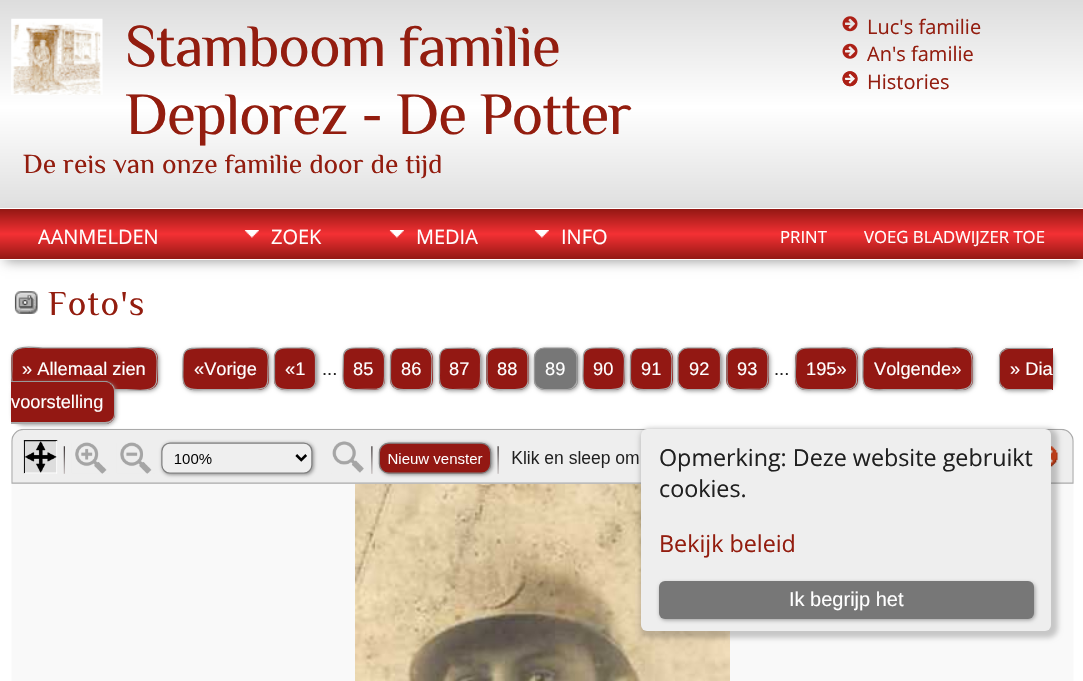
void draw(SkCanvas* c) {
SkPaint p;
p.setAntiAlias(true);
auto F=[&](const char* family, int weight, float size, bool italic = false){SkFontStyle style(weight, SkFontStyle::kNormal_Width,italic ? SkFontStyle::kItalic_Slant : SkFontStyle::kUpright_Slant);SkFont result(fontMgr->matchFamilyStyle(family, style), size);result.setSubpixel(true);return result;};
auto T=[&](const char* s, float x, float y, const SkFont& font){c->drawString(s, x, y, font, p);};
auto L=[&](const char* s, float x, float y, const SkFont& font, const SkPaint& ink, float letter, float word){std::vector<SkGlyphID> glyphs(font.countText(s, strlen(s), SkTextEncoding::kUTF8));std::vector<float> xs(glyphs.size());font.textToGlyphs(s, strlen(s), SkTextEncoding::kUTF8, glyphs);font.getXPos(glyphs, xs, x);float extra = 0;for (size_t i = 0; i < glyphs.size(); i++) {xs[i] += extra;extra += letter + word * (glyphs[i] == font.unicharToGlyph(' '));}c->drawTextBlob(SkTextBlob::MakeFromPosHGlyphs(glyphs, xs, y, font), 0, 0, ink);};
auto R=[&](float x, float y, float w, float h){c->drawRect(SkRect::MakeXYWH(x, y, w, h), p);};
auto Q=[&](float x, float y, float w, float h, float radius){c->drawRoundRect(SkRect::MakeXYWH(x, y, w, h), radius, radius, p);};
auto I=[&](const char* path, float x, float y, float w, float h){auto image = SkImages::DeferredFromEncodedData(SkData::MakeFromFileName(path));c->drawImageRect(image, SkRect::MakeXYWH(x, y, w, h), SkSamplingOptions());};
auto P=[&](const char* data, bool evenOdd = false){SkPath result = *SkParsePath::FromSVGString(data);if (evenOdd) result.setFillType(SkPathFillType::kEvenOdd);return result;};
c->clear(0xffffffff);
{
const SkColor colors[] = {0xffdddddd,0xffffffff,0xffdddddd};
const float stops[] = {0,.5,1};
const SkPoint ends[] = {{542,0}, {542,214}};
p.setShader(SkGradientShader::MakeLinear(ends, colors, stops, 3, SkTileMode::kClamp));
p.setAlpha(255);
}
R(0,0,1083,208);
I("1.png",11,18,92,77);
auto f1 = F("Philosopher",400,60);
p.setShader(nullptr);
p.setColor(0xff931d0f);
L("Stamboom familie",125,66,f1,p,-1.25,0);
L("Deplorez - De Potter",125,134,f1,p,-1.25,0);
auto f2 = F("Philosopher",400,27.5);
T("De reis van onze familie door de tijd",23,173,f2);
I("2.png",842,16,16,16);
auto f3 = F("Open Sans",400,20);
T("Luc's familie",867,34,f3);
I("3.png",842,43,16,16);
T("An's familie",867,61,f3);
I("4.png",842,71,16,16);
I("5.png",842,71,16,16);
T("Histories",867,89,f3);
p.setColor(0x66000000);
p.setMaskFilter(SkMaskFilter::MakeBlur(kNormal_SkBlurStyle, 6));
c->drawRect(SkRect::MakeXYWH(5,219,1074,42),p);
p.setMaskFilter(nullptr);
{
const SkColor colors[] = {0xff931813,0xfff43034,0xff931813};
const float stops[] = {0,.5,1};
const SkPoint ends[] = {{542,209}, {542,259}};
p.setShader(SkGradientShader::MakeLinear(ends, colors, stops, 3, SkTileMode::kClamp));
p.setAlpha(255);
}
R(0,209,1083,50);
p.setShader(nullptr);
p.setColor(0xffffffff);
R(0,208,1083,1);
R(0,259,1083,1);
T("AANMELDEN",38,244,f3);
I("6.png",244,230,15,8);
T("ZOEK",271,244,f3);
I("7.png",389,230,15,8);
T("MEDIA",416,244,f3);
I("7.png",534,230,15,8);
T("INFO",561,244,f3);
auto f4 = F("Open Sans",400,16.75);
T("PRINT",780,243,f4);
T("VOEG BLADWIJZER TOE",864,243,f4);
I("8.png",14,291,24,23);
auto f5 = F("Philosopher",400,35);
p.setColor(0xff931d0f);
L("Foto's",48,315,f5,p,1.25,0);
p.setColor(0xff999999);
p.setMaskFilter(SkMaskFilter::MakeBlur(kNormal_SkBlurStyle, 2));
c->drawRoundRect(SkRect::MakeXYWH(13,349,146,42),10,10,p);
p.setMaskFilter(nullptr);
p.setColor(0xff931813);
Q(11,348,147,42,10);
p.setStroke(true);
p.setStrokeWidth(1.2);
p.setColor(0xffaaaaaa);
c->drawPath(P("M154 351c4.5 4.5 3 12 3 18l-.5 13c-2.5 12-24 7.5-30 7.5h-84c-3.5 0-22 3-28-3"),p);
p.setColor(0xff999999);
c->drawPath(P("M14.5 386.5c-4.5-4.5-2.5-12-2.5-17.5v-13.5c2.5-12 24.5-7.5 30.5-7.5h84c3 0 21.5-3 27.5 3"),p);
auto f6 = F("Liberation Sans",400,18.25);
p.setStroke(false);
p.setColor(0xffffffff);
T("» Allemaal zien",22,375,f6);
p.setColor(0xff999999);
p.setMaskFilter(SkMaskFilter::MakeBlur(kNormal_SkBlurStyle, 2));
c->drawRoundRect(SkRect::MakeXYWH(184,349,86,42),10,10,p);
p.setMaskFilter(nullptr);
p.setColor(0xff931813);
Q(183,348,86,42,10);
p.setStroke(true);
p.setColor(0xffaaaaaa);
c->drawPath(P("M265.5 351c4.5 4.5 2.5 12 2.5 18c0 20 .5 20.5-20.5 20.5h-44c-5 0-13 1.5-17.5-3"),p);
p.setColor(0xff999999);
c->drawPath(P("M186 386.5c-4.5-4.5-3-12-3-17.5c0-20.5 0-21 20.5-21h44c5.5 0 13.5-1.5 18 3"),p);
p.setStroke(false);
p.setColor(0xffffffff);
T("«Vorige",194,375,f6);
p.setColor(0xff999999);
p.setMaskFilter(SkMaskFilter::MakeBlur(kNormal_SkBlurStyle, 2));
c->drawRoundRect(SkRect::MakeXYWH(275,349,43,42),10,10,p);
p.setMaskFilter(nullptr);
p.setColor(0xff931813);
Q(274,348,42,42,10);
p.setStroke(true);
p.setColor(0xffaaaaaa);
c->drawPath(P("M313 351c3 3 2.5 6.5 2.5 10v21c-1.5 7-7 7.5-13 7.5h-11.5c-4.5 0-10 1-14-3"),p);
p.setColor(0xff999999);
c->drawPath(P("M277 386.5c-3-3-2.5-6.5-2.5-10.5v-20.5c1.5-7 7-7.5 13-7.5h11.5c4.5 0 10-1 14 3"),p);
p.setStroke(false);
p.setColor(0xffffffff);
T("«1",285,375,f6);
p.setColor(0xff202020);
T("...",322,375,f6);
p.setColor(0xff999999);
p.setMaskFilter(SkMaskFilter::MakeBlur(kNormal_SkBlurStyle, 2));
c->drawRoundRect(SkRect::MakeXYWH(344,349,42,42),10,10,p);
p.setMaskFilter(nullptr);
p.setColor(0xff931813);
Q(343,348,42,42,10);
p.setStroke(true);
p.setColor(0xffaaaaaa);
c->drawPath(P("M381.5 351c4 3.5 3 9 3 14v11c0 6-.5 12-7.5 13l-21 .5c-3.5 0-7 0-10-3"),p);
p.setColor(0xff999999);
c->drawPath(P("M346 386.5c-3-3-3-6.5-3-10.5l.5-20.5c1-7 7-7.5 12.5-7.5h11.5c5 0 10.5-1 14 3"),p);
p.setStroke(false);
p.setColor(0xffffffff);
T("85",353,375,f6);
p.setColor(0xff999999);
p.setMaskFilter(SkMaskFilter::MakeBlur(kNormal_SkBlurStyle, 2));
c->drawRoundRect(SkRect::MakeXYWH(391,349,43,42),10,10,p);
p.setMaskFilter(nullptr);
p.setColor(0xff931813);
Q(390,348,43,42,10);
p.setStroke(true);
p.setColor(0xffaaaaaa);
c->drawPath(P("M429 351c3 3 3 6.5 3 10l-.5 21c-1 7-7 7.5-12.5 7.5h-11.5c-5 0-10.5 1-14-3"),p);
p.setColor(0xff999999);
c->drawPath(P("M393.5 386.5c-4-3.5-3-9-3-14v-11.5c0-5.5 .5-11.5 7.5-12.5l21-.5c3.5 0 7 0 10 3"),p);
p.setStroke(false);
p.setColor(0xffffffff);
T("86",401,375,f6);
p.setColor(0xff999999);
p.setMaskFilter(SkMaskFilter::MakeBlur(kNormal_SkBlurStyle, 2));
c->drawRoundRect(SkRect::MakeXYWH(440,349,43,42),10,10,p);
p.setMaskFilter(nullptr);
p.setColor(0xff931813);
Q(439,348,42,42,10);
p.setStroke(true);
p.setColor(0xffaaaaaa);
c->drawPath(P("M478 351c3.5 3.5 2.5 9 2.5 14v11c0 6-.5 12-7.5 13l-20.5 .5c-4 0-7.5 0-10.5-3"),p);
p.setColor(0xff999999);
c->drawPath(P("M442 386.5c-3.5-3.5-2.5-9-2.5-14v-11.5c0-5.5 .5-11.5 7.5-12.5l20.5-.5c4 0 7.5 0 10.5 3"),p);
p.setStroke(false);
p.setColor(0xffffffff);
T("87",449,375,f6);
p.setColor(0xff999999);
p.setMaskFilter(SkMaskFilter::MakeBlur(kNormal_SkBlurStyle, 2));
c->drawRoundRect(SkRect::MakeXYWH(488,349,42,42),10,10,p);
p.setMaskFilter(nullptr);
p.setColor(0xff931813);
Q(486,348,43,42,10);
p.setStroke(true);
p.setColor(0xffaaaaaa);
c->drawPath(P("M525.5 351c3 3 2.5 6.5 2.5 10v21c-1.5 7-7 7.5-13 7.5h-11c-5 0-10.5 1-14.5-3"),p);
p.setColor(0xff999999);
c->drawPath(P("M489.5 386.5c-3-3-2.5-6.5-2.5-10.5v-20.5c1.5-7 7-7.5 13-7.5h11c5 0 10.5-1 14.5 3"),p);
p.setStroke(false);
p.setColor(0xffffffff);
T("88",497,375,f6);
p.setColor(0xff999999);
p.setMaskFilter(SkMaskFilter::MakeBlur(kNormal_SkBlurStyle, 2));
c->drawRoundRect(SkRect::MakeXYWH(535,349,44,42),10,10,p);
p.setMaskFilter(nullptr);
p.setColor(0xff777777);
Q(534,348,44,42,10);
p.setStroke(true);
p.setColor(0xffaaaaaa);
c->drawPath(P("M574 351c2 1.5 3 4 3 6.5v22.5c0 2.5-1 5-3 6.5c-1.5 2-4 3-6.5 3h-23.5c-2.5 0-5-1-7-3"),p);
p.setColor(0xff999999);
c->drawPath(P("M537 386.5c-1.5-1.5-2.5-4-2.5-6.5v-22.5c0-2.5 1-5 2.5-6.5c2-2 4.5-3 7-3h23.5c2.5 0 5 1 6.5 3"),p);
p.setStroke(false);
p.setColor(0xffffffff);
T("89",545,375,f6);
p.setColor(0xff999999);
p.setMaskFilter(SkMaskFilter::MakeBlur(kNormal_SkBlurStyle, 2));
c->drawRoundRect(SkRect::MakeXYWH(584,349,42,42),10,10,p);
p.setMaskFilter(nullptr);
p.setColor(0xff931813);
Q(583,348,42,42,10);
p.setStroke(true);
p.setColor(0xffaaaaaa);
c->drawPath(P("M621.5 351c3 3 3 6.5 3 10l-.5 21c-1 7-7 7.5-13 7.5h-11c-5 0-10.5 1-14-3"),p);
p.setColor(0xff999999);
c->drawPath(P("M586 386.5c-3-3-3-6.5-3-10.5l.5-20.5c1-7 7-7.5 12.5-7.5h11.5c5 0 10.5-1 14 3"),p);
p.setStroke(false);
p.setColor(0xffffffff);
T("90",593,375,f6);
p.setColor(0xff999999);
p.setMaskFilter(SkMaskFilter::MakeBlur(kNormal_SkBlurStyle, 2));
c->drawRoundRect(SkRect::MakeXYWH(631,349,43,42),10,10,p);
p.setMaskFilter(nullptr);
p.setColor(0xff931813);
Q(630,348,43,42,10);
p.setStroke(true);
p.setColor(0xffaaaaaa);
c->drawPath(P("M669 351c3 3 3 6.5 3 10l-.5 21c-1 7-7 7.5-12.5 7.5h-11.5c-5 0-10.5 1-14-3"),p);
p.setColor(0xff999999);
c->drawPath(P("M633.5 386.5c-4-3.5-3-9-3-14v-11.5c0-5.5 .5-11.5 7.5-12.5l21-.5c3.5 0 7 0 10 3"),p);
p.setStroke(false);
p.setColor(0xffffffff);
T("91",641,375,f6);
p.setColor(0xff999999);
p.setMaskFilter(SkMaskFilter::MakeBlur(kNormal_SkBlurStyle, 2));
c->drawRoundRect(SkRect::MakeXYWH(679,349,44,42),10,10,p);
p.setMaskFilter(nullptr);
p.setColor(0xff931813);
Q(678,348,43,42,10);
p.setStroke(true);
p.setColor(0xffaaaaaa);
c->drawPath(P("M718 351c1.5 1.5 2.5 4 2.5 6.5v22.5c0 2.5-1 5-2.5 6.5c-2 2-4.5 3-7 3h-23.5c-2.5 0-5-1-6.5-3"),p);
p.setColor(0xff999999);
c->drawPath(P("M681 386.5c-2-1.5-3-4-3-6.5v-22.5c0-2.5 1-5 3-6.5c1.5-2 4-3 6.5-3h23.5c2.5 0 5 1 7 3"),p);
p.setStroke(false);
p.setColor(0xffffffff);
T("92",689,375,f6);
p.setColor(0xff999999);
p.setMaskFilter(SkMaskFilter::MakeBlur(kNormal_SkBlurStyle, 2));
c->drawRoundRect(SkRect::MakeXYWH(728,349,42,42),10,10,p);
p.setMaskFilter(nullptr);
p.setColor(0xff931813);
Q(726,348,43,42,10);
p.setStroke(true);
p.setColor(0xffaaaaaa);
c->drawPath(P("M765.5 351c3.5 3.5 2.5 9 2.5 14v11c0 6-.5 12-7.5 13l-20.5 .5c-4 0-7.5 0-10.5-3"),p);
p.setColor(0xff999999);
c->drawPath(P("M729.5 386.5c-3-3-2.5-6.5-2.5-10.5v-20.5c1.5-7 7-7.5 13-7.5h11c5 0 10.5-1 14.5 3"),p);
p.setStroke(false);
p.setColor(0xffffffff);
T("93",737,375,f6);
p.setColor(0xff202020);
T("...",774,375,f6);
p.setColor(0xff999999);
p.setMaskFilter(SkMaskFilter::MakeBlur(kNormal_SkBlurStyle, 2));
c->drawRoundRect(SkRect::MakeXYWH(796,349,63,42),10,10,p);
p.setMaskFilter(nullptr);
p.setColor(0xff931813);
Q(795,348,63,42,10);
p.setStroke(true);
p.setColor(0xffaaaaaa);
c->drawPath(P("M854 351c4.5 4.5 3 12 3 18l-.5 13c-1.5 8-9.5 7.5-16 7.5h-28.5c-4.5 0-10 1-13.5-3"),p);
p.setColor(0xff999999);
c->drawPath(P("M798.5 386.5c-4.5-4.5-3-12-3-17.5l.5-13.5c1.5-8 9.5-7.5 16-7.5h28.5c4.5 0 10-1 13.5 3"),p);
p.setStroke(false);
p.setColor(0xffffffff);
T("195»",806,375,f6);
p.setColor(0xff999999);
p.setMaskFilter(SkMaskFilter::MakeBlur(kNormal_SkBlurStyle, 2));
c->drawRoundRect(SkRect::MakeXYWH(864,349,110,42),10,10,p);
p.setMaskFilter(nullptr);
p.setColor(0xff931813);
Q(863,348,110,42,10);
p.setStroke(true);
p.setColor(0xffaaaaaa);
c->drawPath(P("M969 351c4.5 4.5 3 12 3 18v12c-1.5 11.5-17.5 8.5-24.5 8.5h-60c-5 0-16.5 2-21.5-3"),p);
p.setColor(0xff999999);
c->drawPath(P("M866 386.5c-4.5-4.5-3-12-3-17.5v-12.5c1.5-11.5 17.5-8.5 24.5-8.5h60c5 0 16.5-2 21.5 3"),p);
p.setStroke(false);
p.setColor(0xffffffff);
T("Volgende»",874,375,f6);
p.setColor(0xff999999);
p.setMaskFilter(SkMaskFilter::MakeBlur(kNormal_SkBlurStyle, 2));
c->drawRoundRect(SkRect::MakeXYWH(1000,349,54,42),10,10,p);
p.setMaskFilter(nullptr);
p.setColor(0xff931813);
c->drawPath(P("M1009 348h44v42h-44c-5.5 0-10-4.5-10-10v-22c0-5.5 4.5-10 10-10z"),p);
p.setColor(0xffffffff);
T("» Dia",1010,375,f6);
p.setColor(0xff999999);
c->drawPath(P("M1009 348h43v1h-43c-2 0-5 1-6 3l-1-1c2-2 4-3 7-3z"),p);
p.setColor(0xffaaaaaa);
c->drawPath(P("M1009 390h43v-1h-43c-3 0-5-1-6-3l-1 1c1 2 4 3 7 3z"),p);
p.setColor(0xff999999);
c->drawPath(P("M1002.5 386l-1 1c-1.5-1.5-2.5-4-2.5-7v-22c0-3 1-5.5 3-7.5l1 1c-2 1.5-3 4-3 6.5v22c0 2.5 1 4.5 2.5 6z"),p);
p.setMaskFilter(SkMaskFilter::MakeBlur(kNormal_SkBlurStyle, 2));
c->drawRoundRect(SkRect::MakeXYWH(13,383,103,42),10,10,p);
p.setMaskFilter(nullptr);
p.setColor(0xff931813);
c->drawPath(P("M11 381h94c5.5 0 10 4.5 10 10v23c0 5.5-4.5 10-10 10h-94z"),p);
p.setColor(0xffffffff);
T("voorstelling",11,408,f6);
p.setColor(0xff999999);
c->drawPath(P("M11 381h96c2 1 4 2 5 3l-1 1c-1-2-3-3-6-3h-94z"),p);
p.setColor(0xffaaaaaa);
c->drawPath(P("M111 420c2-1.5 3-3.5 3-6v-23c0-2.5-1-4.5-2.5-6l.5-1c2 2 3 4.5 3 7v23c0 2.5-1 5-3 7z"),p);
c->drawPath(P("M11 422h94c2 0 5-1 6-2l1 1c-1 1-3 2-5 3h-96z"),p);
I("9.png",11,428,1063,253);
p.setColor(0x33000000);
p.setMaskFilter(SkMaskFilter::MakeBlur(kNormal_SkBlurStyle, 2.5));
c->drawRoundRect(SkRect::MakeXYWH(640,428,418,210),10,10,p);
p.setMaskFilter(nullptr);
p.setColor(0xffeeeeee);
Q(641,429,410,202,6);
auto f7 = F("Open Sans",400,23.3);
p.setColor(0xff202020);
T("Opmerking: Deze website gebruikt",659,466,f7);
T("cookies.",659,497,f7);
p.setColor(0xff931d0f);
T("Bekijk beleid",659,552,f7);
p.setColor(0xff999999);
p.setMaskFilter(SkMaskFilter::MakeBlur(kNormal_SkBlurStyle, 2));
c->drawRoundRect(SkRect::MakeXYWH(660,583,375,37),6,6,p);
p.setMaskFilter(nullptr);
p.setColor(0xff777777);
Q(659,581,375,38,6);
auto f8 = F("Liberation Sans",400,20);
p.setColor(0xffffffff);
T("Ik begrijp het",789,606,f8);
}
